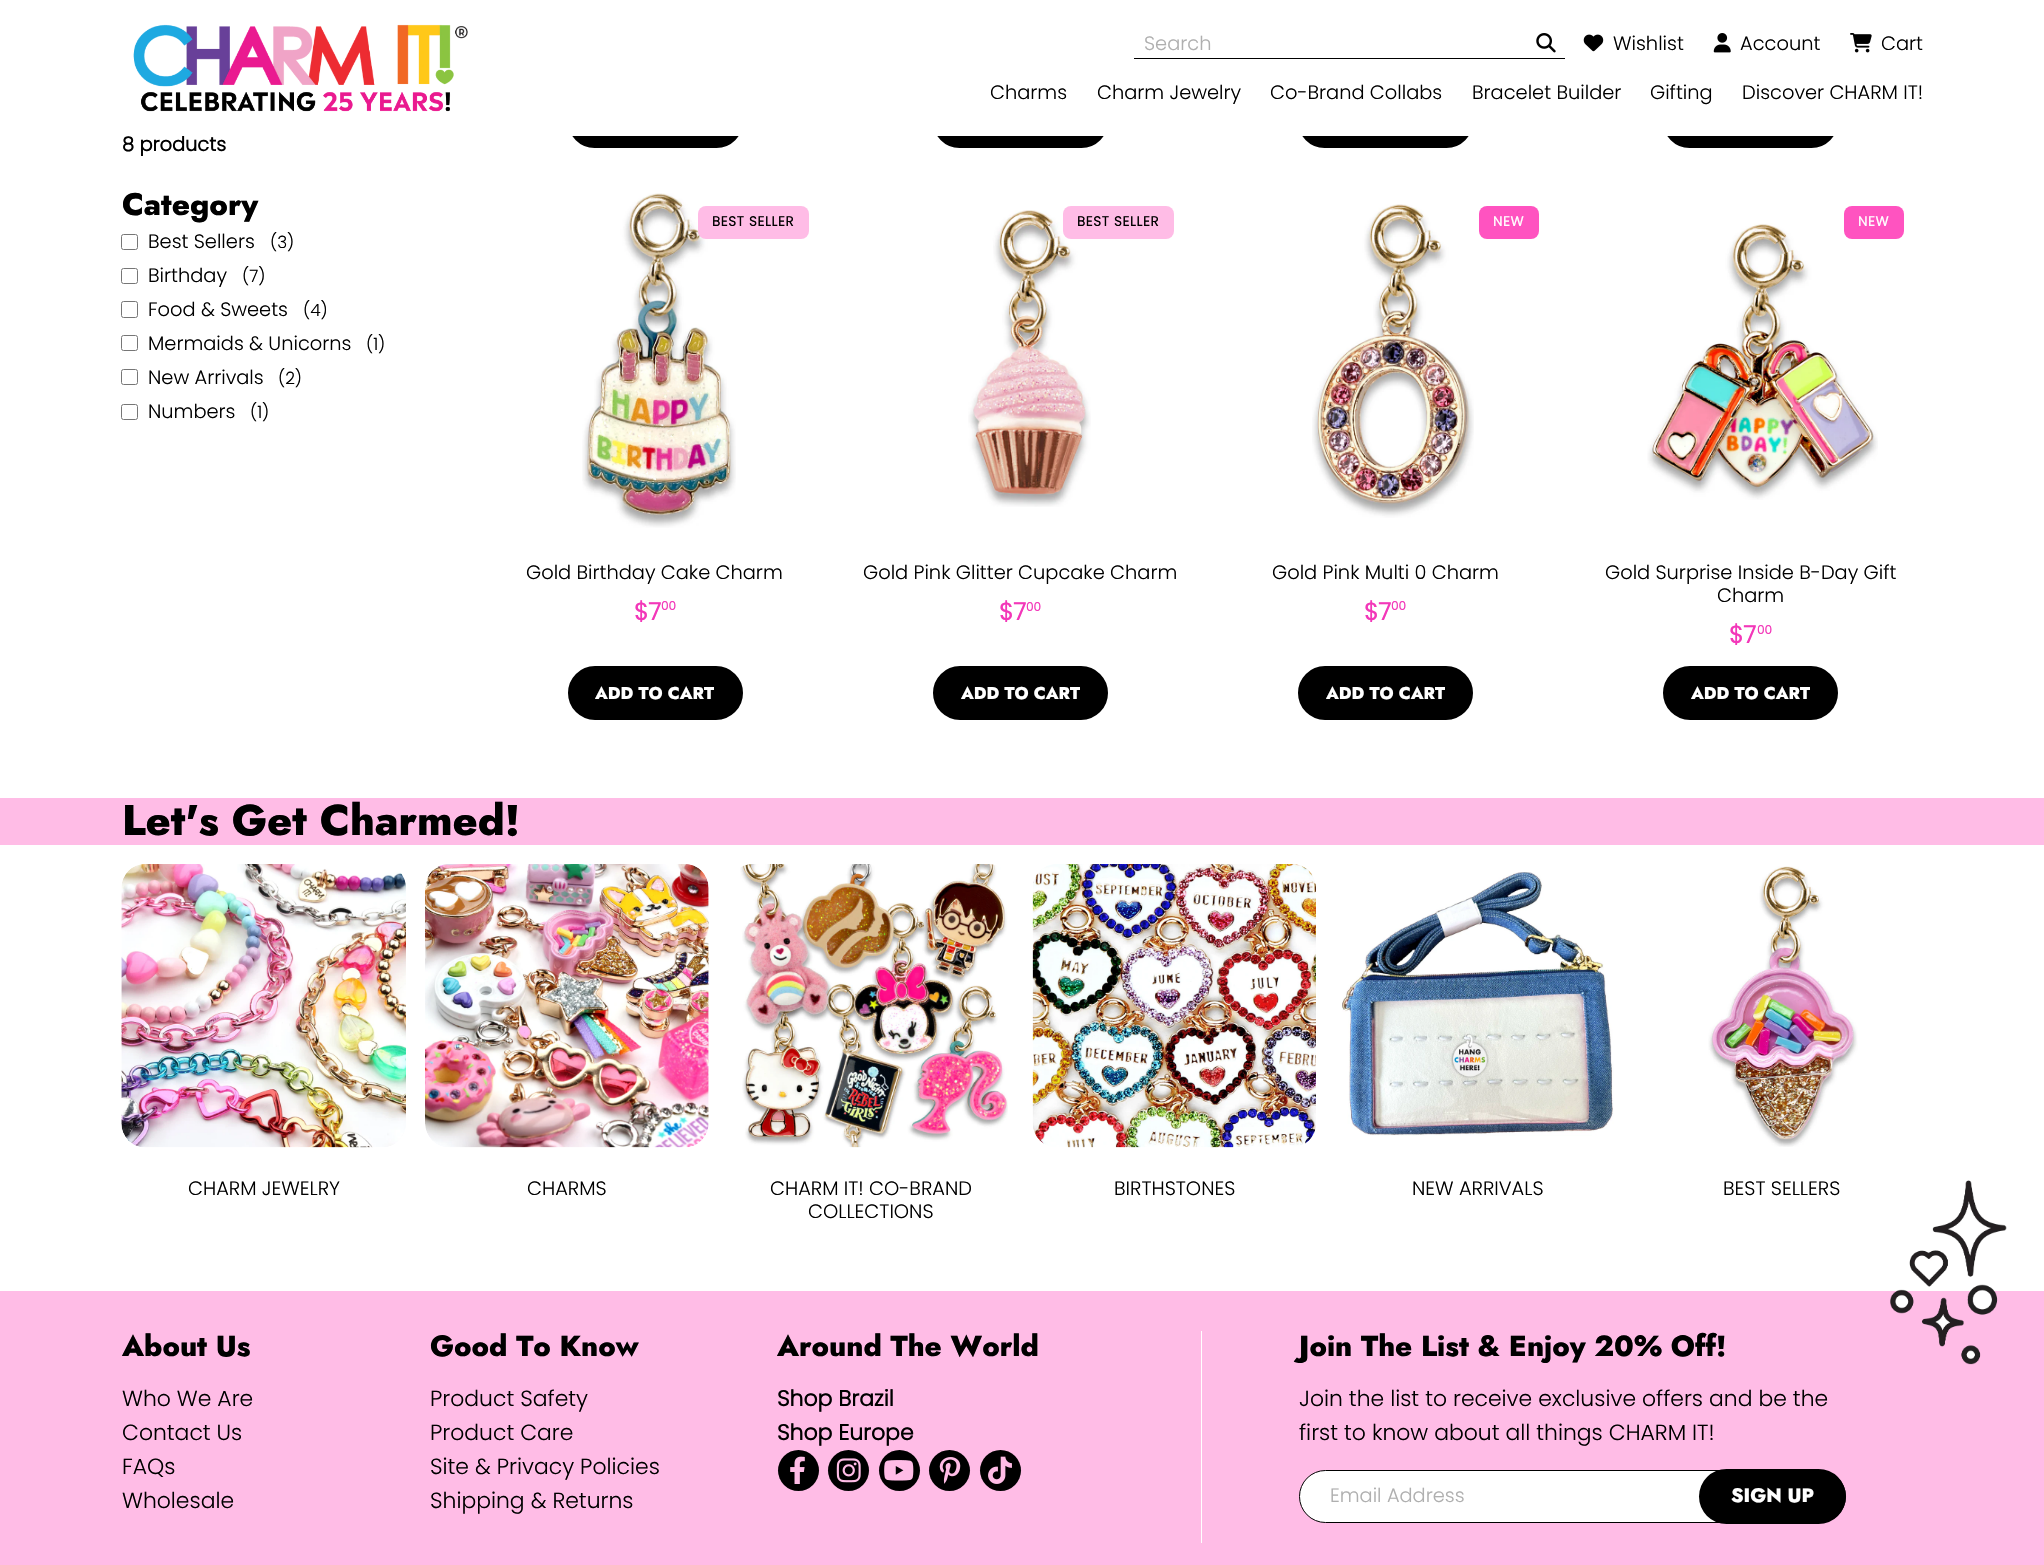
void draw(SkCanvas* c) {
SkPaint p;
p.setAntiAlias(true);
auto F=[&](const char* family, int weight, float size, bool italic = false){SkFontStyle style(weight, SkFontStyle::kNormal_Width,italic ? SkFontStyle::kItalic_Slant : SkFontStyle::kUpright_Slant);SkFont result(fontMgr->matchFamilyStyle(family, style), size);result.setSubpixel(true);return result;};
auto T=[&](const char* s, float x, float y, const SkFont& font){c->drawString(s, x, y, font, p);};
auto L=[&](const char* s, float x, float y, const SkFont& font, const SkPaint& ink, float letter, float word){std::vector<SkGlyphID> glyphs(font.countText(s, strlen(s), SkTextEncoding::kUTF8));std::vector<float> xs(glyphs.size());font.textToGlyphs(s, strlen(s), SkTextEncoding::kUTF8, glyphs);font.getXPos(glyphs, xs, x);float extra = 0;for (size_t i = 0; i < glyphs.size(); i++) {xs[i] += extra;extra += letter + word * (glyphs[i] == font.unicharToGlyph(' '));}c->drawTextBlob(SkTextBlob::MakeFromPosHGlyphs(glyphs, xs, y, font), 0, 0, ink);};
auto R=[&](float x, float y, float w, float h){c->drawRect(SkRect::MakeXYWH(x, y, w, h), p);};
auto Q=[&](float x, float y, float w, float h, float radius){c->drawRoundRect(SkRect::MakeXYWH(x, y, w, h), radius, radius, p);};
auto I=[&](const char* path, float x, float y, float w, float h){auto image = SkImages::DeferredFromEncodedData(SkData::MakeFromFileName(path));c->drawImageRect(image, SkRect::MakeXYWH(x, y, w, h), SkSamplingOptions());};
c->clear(0xffffffff);
p.setColor(0xff000000);
c->drawRoundRect(SkRect::MakeXYWH(569.5,96.5,172,50),25,25,p);
p.setStroke(true);
p.setStrokeWidth(3);
c->drawRoundRect(SkRect::MakeXYWH(569.5,96.5,172,50),25,25,p);
p.setStroke(false);
c->drawRoundRect(SkRect::MakeXYWH(934.5,96.5,172,50),25,25,p);
p.setStroke(true);
c->drawRoundRect(SkRect::MakeXYWH(934.5,96.5,172,50),25,25,p);
p.setStroke(false);
c->drawRoundRect(SkRect::MakeXYWH(1299.5,96.5,172,50),25,25,p);
p.setStroke(true);
c->drawRoundRect(SkRect::MakeXYWH(1299.5,96.5,172,50),25,25,p);
p.setStroke(false);
c->drawRoundRect(SkRect::MakeXYWH(1664.5,96.5,172,50),25,25,p);
p.setStroke(true);
c->drawRoundRect(SkRect::MakeXYWH(1664.5,96.5,172,50),25,25,p);
p.setStroke(false);
p.setColor(0xffffffff);
R(568,95,1270,41);
I("1.png",133,24,335,88);
p.setColor(0xff000000);
R(1134,58,431,1);
auto f1 = F("Poppins",300,19.4);
p.setColor(0xffafafaf);
T("Search",1144,50,f1);
I("2.png",1536,33,20,20);
I("3.png",1583,34,21,18);
p.setColor(0xff000000);
T("Wishlist",1613,50,f1);
I("4.png",1713,33,18,20);
T("Account",1740,50,f1);
I("5.png",1850,33,22,20);
T("Cart",1881,50,f1);
T("Charms",990,99,f1);
T("Charm Jewelry",1097,99,f1);
T("Co-Brand Collabs",1270,99,f1);
T("Bracelet Builder",1472,99,f1);
T("Gifting",1650,99,f1);
T("Discover CHARM IT!",1742,99,f1);
auto f2 = F("Poppins",700,19.4);
T("8 products",122,151,f2);
auto f3 = F("Jost",800,31);
T("Category",122,215,f3);
p.setStroke(true);
p.setStrokeWidth(1);
p.setColor(0xff767676);
c->drawRoundRect(SkRect::MakeXYWH(121.5,234.5,16,15),2,2,p);
p.setStroke(false);
p.setColor(0xff000000);
T("Best Sellers",148,248,f1);
auto f4 = F("Poppins",300,17);
T("(3)",270,248,f4);
p.setStroke(true);
p.setColor(0xff767676);
c->drawRoundRect(SkRect::MakeXYWH(121.5,268.5,16,15),2,2,p);
p.setStroke(false);
p.setColor(0xff000000);
T("Birthday",148,282,f1);
T("(7)",242,282,f4);
p.setStroke(true);
p.setColor(0xff767676);
c->drawRoundRect(SkRect::MakeXYWH(121.5,301.5,16,16),2,2,p);
p.setStroke(false);
p.setColor(0xff000000);
T("Food & Sweets",148,316,f1);
T("(4)",303,316,f4);
p.setStroke(true);
p.setColor(0xff767676);
c->drawRoundRect(SkRect::MakeXYWH(121.5,335.5,16,15),2,2,p);
p.setStroke(false);
p.setColor(0xff000000);
T("Mermaids & Unicorns",148,350,f1);
T("(1)",366,350,f4);
p.setStroke(true);
p.setColor(0xff767676);
c->drawRoundRect(SkRect::MakeXYWH(121.5,369.5,16,15),2,2,p);
p.setStroke(false);
p.setColor(0xff000000);
T("New Arrivals",148,384,f1);
T("(2)",278,384,f4);
p.setStroke(true);
p.setColor(0xff767676);
c->drawRoundRect(SkRect::MakeXYWH(121.5,404.5,16,15),2,2,p);
p.setStroke(false);
p.setColor(0xff000000);
T("Numbers",148,418,f1);
T("(1)",250,418,f4);
I("6.png",582,193,154,335);
p.setColor(0xffffbce6);
Q(698,206,111,33,8);
auto f5 = F("Poppins",700,13.5);
p.setColor(0xff000000);
L("BEST SELLER",712,226,f5,p,.75,0);
T("Gold Birthday Cake Charm",526,579,f1);
auto f6 = F("Poppins",700,24);
p.setColor(0xfff337b9);
T("$7",634,620,f6);
auto f7 = F("Poppins",700,12);
T("00",661,610,f7);
p.setColor(0xff000000);
c->drawRoundRect(SkRect::MakeXYWH(569.5,667.5,172,51),25.5,25.5,p);
p.setStroke(true);
p.setStrokeWidth(3);
c->drawRoundRect(SkRect::MakeXYWH(569.5,667.5,172,51),25.5,25.5,p);
auto f8 = F("Jost",800,17);
p.setStroke(false);
p.setColor(0xffffffff);
T("ADD TO CART",595,699,f8);
I("7.png",968,210,123,297);
p.setColor(0xffffbce6);
Q(1063,206,111,33,8);
p.setColor(0xff000000);
L("BEST SELLER",1077,226,f5,p,.75,0);
T("Gold Pink Glitter Cupcake Charm",863,579,f1);
p.setColor(0xfff337b9);
T("$7",999,620,f6);
T("00",1026,611,f7);
p.setColor(0xff000000);
c->drawRoundRect(SkRect::MakeXYWH(934.5,667.5,172,51),25.5,25.5,p);
p.setStroke(true);
c->drawRoundRect(SkRect::MakeXYWH(934.5,667.5,172,51),25.5,25.5,p);
p.setStroke(false);
p.setColor(0xffffffff);
T("ADD TO CART",961,699,f8);
I("8.png",1312,204,162,314);
p.setColor(0xffff53c0);
Q(1479,206,60,33,8);
p.setColor(0xffffffff);
L("NEW",1493,226,f5,p,.75,0);
p.setColor(0xff000000);
T("Gold Pink Multi 0 Charm",1272,579,f1);
p.setColor(0xfff337b9);
T("$7",1364,620,f6);
T("00",1391,610,f7);
p.setColor(0xff000000);
c->drawRoundRect(SkRect::MakeXYWH(1299.5,667.5,172,51),25.5,25.5,p);
p.setStroke(true);
c->drawRoundRect(SkRect::MakeXYWH(1299.5,667.5,172,51),25.5,25.5,p);
p.setStroke(false);
p.setColor(0xffffffff);
T("ADD TO CART",1326,699,f8);
I("9.png",1647,223,231,277);
p.setColor(0xffff53c0);
Q(1844,206,60,33,8);
p.setColor(0xffffffff);
L("NEW",1858,226,f5,p,.75,0);
p.setColor(0xff000000);
T("Gold Surprise Inside B-Day Gift",1605,579,f1);
T("Charm",1717,602,f1);
p.setColor(0xfff337b9);
T("$7",1729,643,f6);
T("00",1757,634,f7);
p.setColor(0xff000000);
c->drawRoundRect(SkRect::MakeXYWH(1664.5,667.5,172,51),25.5,25.5,p);
p.setStroke(true);
c->drawRoundRect(SkRect::MakeXYWH(1664.5,667.5,172,51),25.5,25.5,p);
p.setStroke(false);
p.setColor(0xffffffff);
T("ADD TO CART",1691,699,f8);
p.setColor(0xffffbce6);
R(0,798,2044,47);
auto f9 = F("Jost",800,42.75);
p.setColor(0xff000000);
T("Let's Get Charmed!",122,835,f9);
I("10.png",121,864,285,284);
T("CHARM JEWELRY",188,1195,f1);
I("11.png",425,864,284,284);
T("CHARMS",527,1195,f1);
I("12.png",740,864,268,284);
T("CHARM IT! CO-BRAND",770,1195,f1);
T("COLLECTIONS",808,1218,f1);
I("13.png",1032,864,284,284);
T("BIRTHSTONES",1114,1195,f1);
I("14.png",1342,872,272,264);
T("NEW ARRIVALS",1412,1195,f1);
I("15.png",1708,866,150,281);
T("BEST SELLERS",1723,1195,f1);
p.setColor(0xffffbce6);
R(0,1291,2044,274);
I("16.png",1890,1180,117,185);
auto f10 = F("Jost",800,29.1);
p.setColor(0xff000000);
T("About Us",122,1356,f10);
auto f11 = F("Poppins",300,21.9);
T("Who We Are",122,1406,f11);
T("Contact Us",122,1440,f11);
T("FAQs",122,1474,f11);
T("Wholesale",122,1508,f11);
T("Good To Know",430,1356,f10);
T("Product Safety",430,1406,f11);
T("Product Care",430,1440,f11);
T("Site & Privacy Policies",430,1474,f11);
T("Shipping & Returns",430,1508,f11);
T("Around The World",777,1356,f10);
auto f12 = F("Poppins",700,21.9);
T("Shop Brazil",777,1406,f12);
T("Shop Europe",777,1440,f12);
c->drawCircle(798.5,1470.5,20.5,p);
I("17.png",790,1456,15,28);
c->drawCircle(848.5,1470.5,20.5,p);
I("18.png",836,1458,25,25);
c->drawCircle(899.5,1470.5,20.5,p);
I("19.png",884,1460,30,21);
c->drawCircle(949.5,1470.5,20.5,p);
I("20.png",939,1457,22,27);
c->drawCircle(1000.5,1470.5,20.5,p);
I("21.png",988,1456,24,28);
p.setColor(0xffffffff);
R(1201,1331,1,212);
p.setColor(0xff000000);
T("Join The List & Enjoy 20% Off!",1299,1356,f10);
T("Join the list to receive exclusive offers and be the",1299,1406,f11);
T("first to know about all things CHARM IT!",1299,1440,f11);
p.setColor(0xffffffff);
c->drawRoundRect(SkRect::MakeXYWH(1299.5,1470.5,546,52),26,26,p);
p.setStroke(true);
p.setStrokeWidth(1);
p.setColor(0xff000000);
c->drawRoundRect(SkRect::MakeXYWH(1299.5,1470.5,546,52),26,26,p);
p.setStroke(false);
p.setColor(0xffafafaf);
T("Email Address",1330,1502,f1);
p.setColor(0xff000000);
Q(1699,1469,147,55,27.5);
auto f13 = F("Jost",800,19.4);
p.setColor(0xffffffff);
T("SIGN UP",1731,1502,f13);
}
